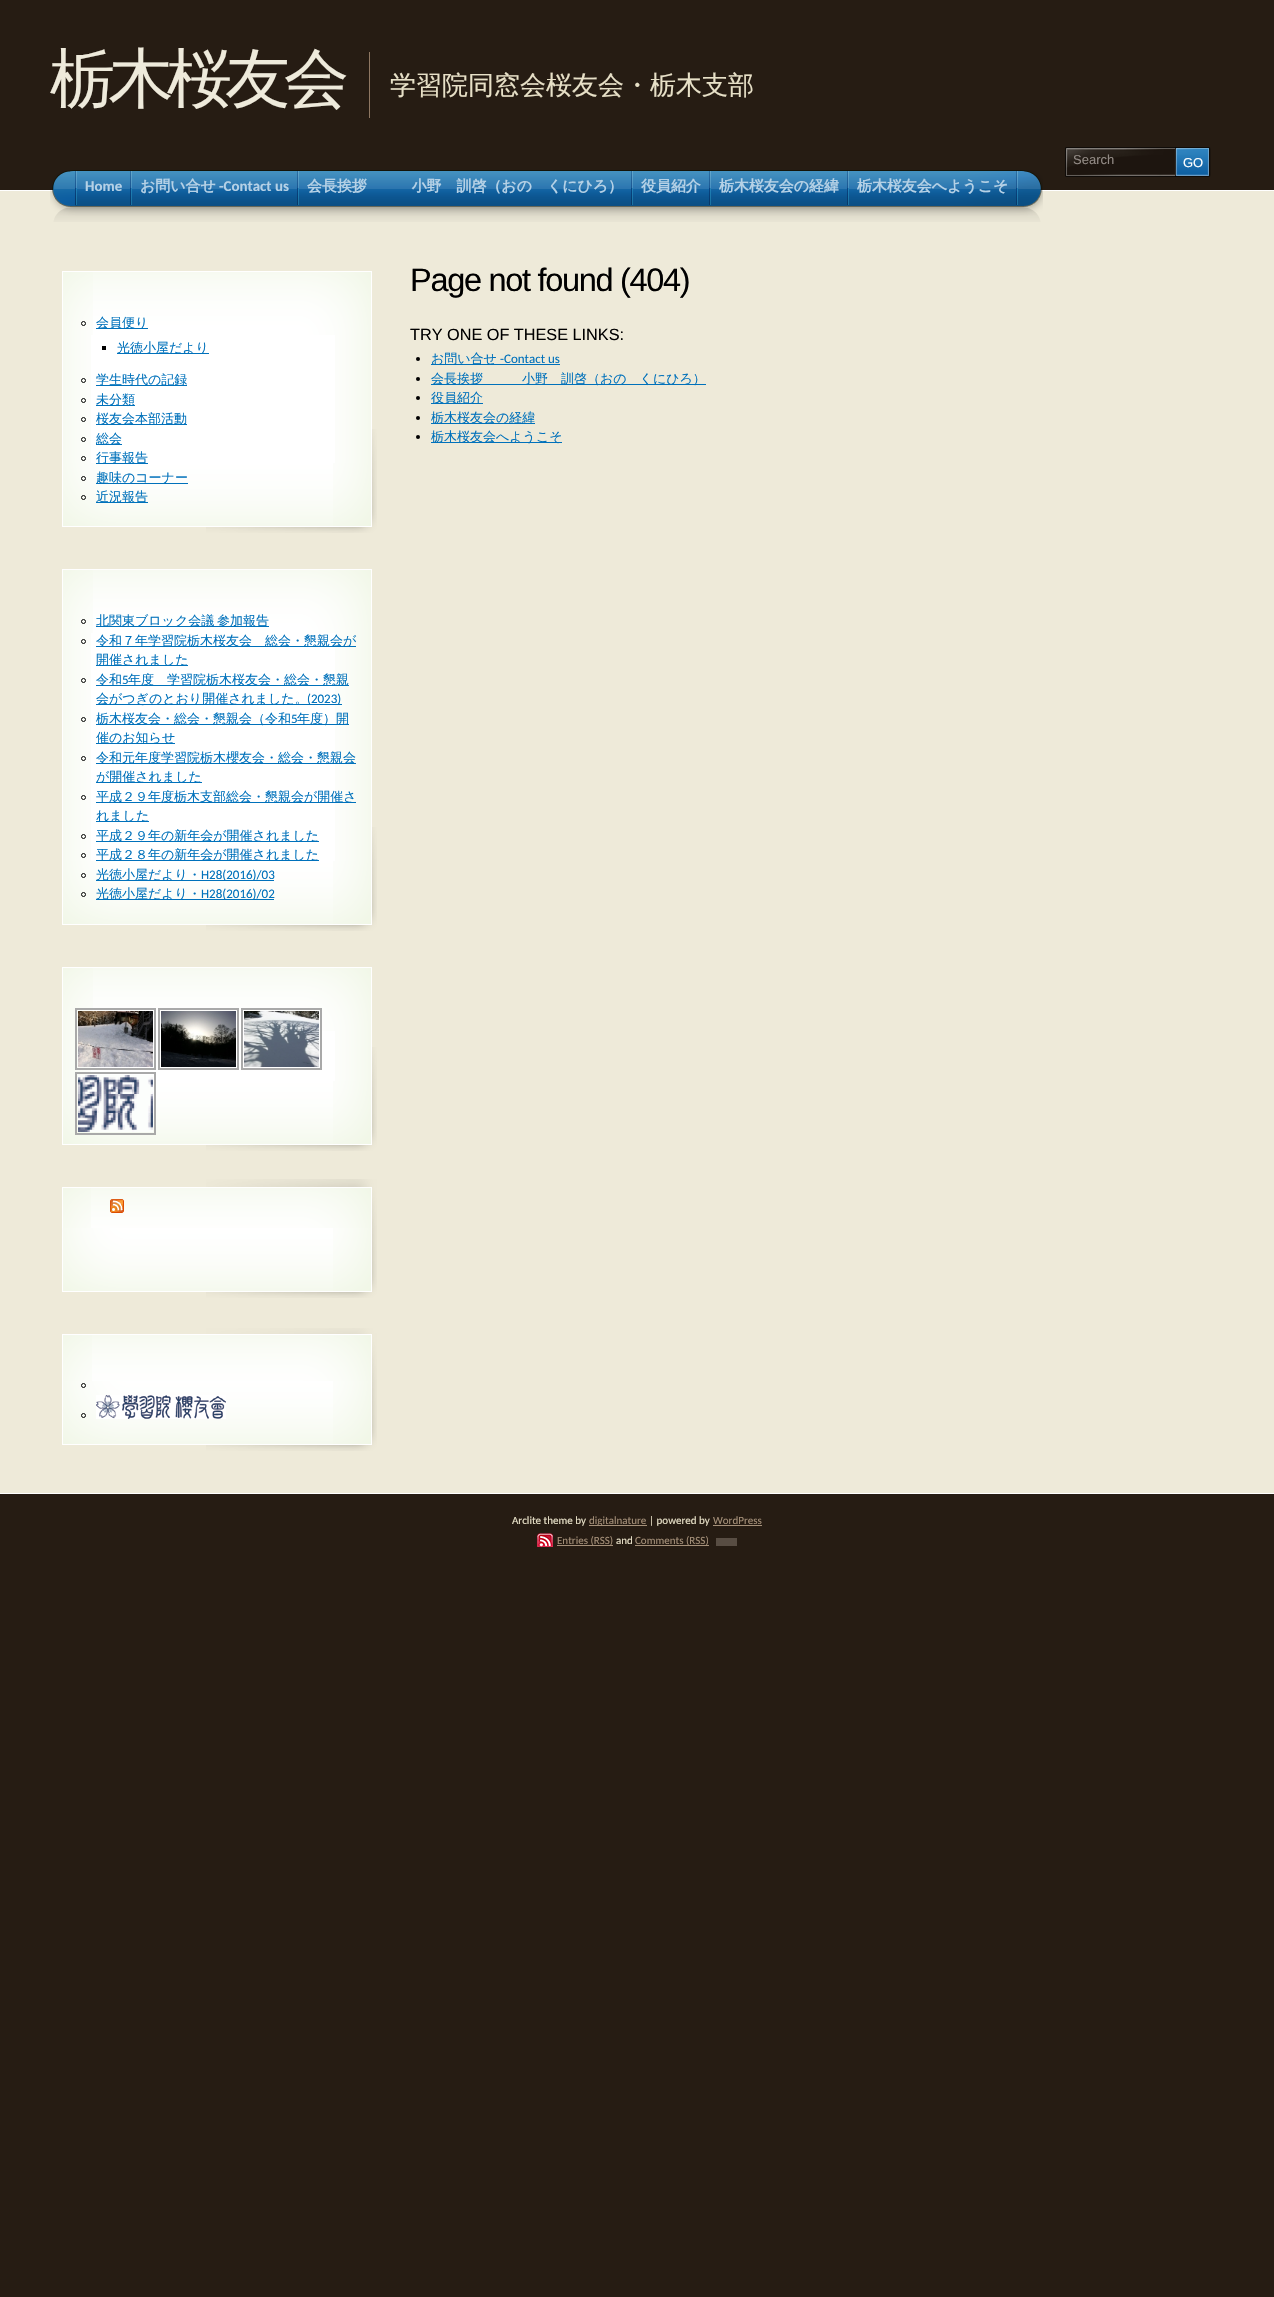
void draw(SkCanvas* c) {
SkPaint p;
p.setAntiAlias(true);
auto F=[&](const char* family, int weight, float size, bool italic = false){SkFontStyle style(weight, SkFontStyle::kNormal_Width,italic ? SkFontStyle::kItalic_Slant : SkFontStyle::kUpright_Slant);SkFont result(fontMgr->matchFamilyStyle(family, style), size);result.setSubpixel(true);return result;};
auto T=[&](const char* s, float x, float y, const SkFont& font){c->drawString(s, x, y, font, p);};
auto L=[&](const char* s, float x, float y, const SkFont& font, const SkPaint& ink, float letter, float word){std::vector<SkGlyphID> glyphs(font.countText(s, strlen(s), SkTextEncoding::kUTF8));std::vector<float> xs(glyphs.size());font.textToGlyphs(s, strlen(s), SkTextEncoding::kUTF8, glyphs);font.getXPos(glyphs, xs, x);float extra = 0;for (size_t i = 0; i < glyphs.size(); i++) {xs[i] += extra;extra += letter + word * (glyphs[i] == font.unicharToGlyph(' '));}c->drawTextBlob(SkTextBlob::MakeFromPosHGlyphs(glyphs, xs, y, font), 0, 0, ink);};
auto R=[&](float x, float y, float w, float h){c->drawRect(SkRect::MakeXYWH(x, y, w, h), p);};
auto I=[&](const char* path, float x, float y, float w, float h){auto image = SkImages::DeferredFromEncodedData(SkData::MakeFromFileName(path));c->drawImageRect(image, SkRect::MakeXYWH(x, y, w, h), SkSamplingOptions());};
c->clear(0xff261c13);
auto f1 = F("WenQuanYi Zen Hei",500,65);
p.setColor(0xffeeeadb);
L("栃木桜友会",50,101,f1,p,-6.5,0);
p.setColor(0xff8e7762);
R(369,52,1,66);
auto f2 = F("WenQuanYi Zen Hei",500,26);
p.setColor(0xffe7e0c7);
T("学習院同窓会桜友会・栃木支部",390,94,f2);
I("1.png",1065,147,110,30);
I("2.png",1175,147,36,30);
auto f3 = F("Liberation Sans",400,13);
p.setColor(0xff928a85);
T("Search",1073,164,f3);
p.setColor(0xffffffff);
T("GO",1183,167,f3);
p.setColor(0xffeeead9);
R(0,191,1274,1302);
p.setColor(0xffffffff);
R(0,190,1274,1);
I("3.png",50,170,25,52);
I("4.png",75,170,968,52);
I("5.png",1016,171,2,34);
I("5.png",75,171,2,34);
auto f4 = F("Carlito",700,14.95);
p.setColor(0xffb5d1e6);
T("Home",85,191,f4);
I("5.png",130,171,2,34);
auto f5 = F("WenQuanYi Zen Hei",700,14.95);
T("お問い合せ",140,191,f5);
T("-Contact us",219,191,f4);
I("5.png",297,171,2,34);
T("会長挨拶　　　小野　訓啓（おの　くにひろ）",307,191,f5);
I("5.png",631,171,2,34);
T("役員紹介",641,191,f5);
I("5.png",709,171,2,34);
T("栃木桜友会の経緯",719,191,f5);
I("5.png",847,171,2,34);
T("栃木桜友会へようこそ",857,191,f5);
I("6.png",206,429,171,104);
p.setColor(0xffffffff);
R(62,271,310,256);
I("7.png",63,335,28,128);
I("8.png",335,335,36,128);
I("9.png",62,271,309,64);
I("10.png",63,463,309,64);
I("11.png",62,272,31,63);
I("12.png",333,463,39,63);
p.setStroke(true);
p.setStrokeWidth(1);
p.setColor(0xff000000);
c->drawCircle(83.5,323.5,2,p);
p.setStroke(false);
p.setColor(0xff0071bb);
R(96,328,52,1);
auto f6 = F("WenQuanYi Zen Hei",500,13);
T("会員便り",96,327,f6);
p.setColor(0xff000000);
R(102,346,4,4);
p.setColor(0xff0071bb);
R(117,353,92,1);
T("光徳小屋だより",117,352,f6);
p.setStroke(true);
p.setColor(0xff000000);
c->drawCircle(83.5,380.5,2,p);
p.setStroke(false);
p.setColor(0xff0071bb);
R(96,385,91,1);
T("学生時代の記録",96,384,f6);
p.setStroke(true);
p.setColor(0xff000000);
c->drawCircle(83.5,400.5,2,p);
p.setStroke(false);
p.setColor(0xff0071bb);
R(96,405,39,1);
T("未分類",96,404,f6);
p.setStroke(true);
p.setColor(0xff000000);
c->drawCircle(83.5,419.5,2,p);
p.setStroke(false);
p.setColor(0xff0071bb);
R(96,424,91,1);
T("桜友会本部活動",96,423,f6);
p.setStroke(true);
p.setColor(0xff000000);
c->drawCircle(83.5,439.5,2,p);
p.setStroke(false);
p.setColor(0xff0071bb);
R(96,444,26,1);
T("総会",96,443,f6);
p.setStroke(true);
p.setColor(0xff000000);
c->drawCircle(83.5,458.5,2,p);
p.setStroke(false);
p.setColor(0xff0071bb);
R(96,463,52,1);
T("行事報告",96,462,f6);
p.setStroke(true);
p.setColor(0xff000000);
c->drawCircle(83.5,478.5,2,p);
p.setStroke(false);
p.setColor(0xff0071bb);
R(96,483,92,1);
T("趣味のコーナー",96,482,f6);
p.setStroke(true);
p.setColor(0xff000000);
c->drawCircle(83.5,497.5,2,p);
p.setStroke(false);
p.setColor(0xff0071bb);
R(96,502,52,1);
T("近況報告",96,501,f6);
I("6.png",206,827,171,104);
p.setColor(0xffffffff);
R(62,569,310,356);
I("13.png",63,633,28,228);
I("14.png",335,633,36,228);
I("9.png",62,569,309,64);
I("10.png",63,861,309,64);
I("11.png",62,570,31,63);
I("12.png",333,861,39,63);
p.setStroke(true);
p.setColor(0xff000000);
c->drawCircle(83.5,621.5,2,p);
p.setStroke(false);
p.setColor(0xff0071bb);
R(96,626,173,1);
L("北関東ブロック会議 参加報告",96,625,f6,p,0,-1);
p.setStroke(true);
p.setColor(0xff000000);
c->drawCircle(83.5,641.5,2,p);
p.setStroke(false);
p.setColor(0xff0071bb);
R(96,646,260,1);
T("令和７年学習院栃木桜友会　総会・懇親会が",96,645,f6);
R(96,665,92,1);
T("開催されました",96,664,f6);
p.setStroke(true);
p.setColor(0xff000000);
c->drawCircle(83.5,680.5,2,p);
p.setStroke(false);
p.setColor(0xff0071bb);
R(96,685,253,1);
T("令和",96,684,f6);
auto f7 = F("Carlito",400,13);
T("5",122,684,f7);
T("年度　学習院栃木桜友会・総会・懇親",128,684,f6);
R(96,704,246,1);
T("会がつぎのとおり開催されました。",96,703,f6);
T("(2023)",307,703,f7);
p.setStroke(true);
p.setColor(0xff000000);
c->drawCircle(83.5,719.5,2,p);
p.setStroke(false);
p.setColor(0xff0071bb);
R(96,724,253,1);
T("栃木桜友会・総会・懇親会（令和",96,723,f6);
T("5",291,723,f7);
T("年度）開",297,723,f6);
R(96,743,79,1);
T("催のお知らせ",96,742,f6);
p.setStroke(true);
p.setColor(0xff000000);
c->drawCircle(83.5,758.5,2,p);
p.setStroke(false);
p.setColor(0xff0071bb);
R(96,763,260,1);
T("令和元年度学習院栃木櫻友会・総会・懇親会",96,762,f6);
R(96,782,106,1);
T("が開催されました",96,781,f6);
p.setStroke(true);
p.setColor(0xff000000);
c->drawCircle(83.5,797.5,2,p);
p.setStroke(false);
p.setColor(0xff0071bb);
R(96,802,260,1);
T("平成２９年度栃木支部総会・懇親会が開催さ",96,801,f6);
R(96,821,53,1);
T("れました",96,820,f6);
p.setStroke(true);
p.setColor(0xff000000);
c->drawCircle(83.5,836.5,2,p);
p.setStroke(false);
p.setColor(0xff0071bb);
R(96,841,223,1);
T("平成２９年の新年会が開催されました",96,840,f6);
p.setStroke(true);
p.setColor(0xff000000);
c->drawCircle(83.5,855.5,2,p);
p.setStroke(false);
p.setColor(0xff0071bb);
R(96,860,223,1);
T("平成２８年の新年会が開催されました",96,859,f6);
p.setStroke(true);
p.setColor(0xff000000);
c->drawCircle(83.5,875.5,2,p);
p.setStroke(false);
p.setColor(0xff0071bb);
R(96,880,178,1);
T("光徳小屋だより・",96,879,f6);
T("H28(2016)/03",201,879,f7);
p.setStroke(true);
p.setColor(0xff000000);
c->drawCircle(83.5,894.5,2,p);
p.setStroke(false);
p.setColor(0xff0071bb);
R(96,899,178,1);
T("光徳小屋だより・",96,898,f6);
T("H28(2016)/02",201,898,f7);
I("6.png",206,1047,171,104);
p.setColor(0xffffffff);
R(62,967,310,178);
I("15.png",63,1031,28,50);
I("16.png",335,1031,36,50);
I("9.png",62,967,309,64);
I("10.png",63,1081,309,64);
I("11.png",62,968,31,63);
I("12.png",333,1081,39,63);
p.setStroke(true);
p.setStrokeWidth(2);
p.setColor(0xffa9a9a9);
c->drawRect(SkRect::MakeXYWH(76,1009,79,60),p);
I("17.png",78,1011,75,56);
c->drawRect(SkRect::MakeXYWH(159,1009,79,60),p);
I("18.png",161,1011,75,56);
c->drawRect(SkRect::MakeXYWH(242,1009,79,60),p);
I("19.png",244,1011,75,56);
c->drawRect(SkRect::MakeXYWH(76,1073,79,61),p);
I("20.png",78,1075,75,57);
I("21.png",206,1179,171,119);
p.setStroke(false);
p.setColor(0xffffffff);
R(62,1187,310,105);
I("9.png",62,1187,309,64);
I("10.png",63,1228,309,64);
I("22.png",62,1188,29,40);
I("12.png",333,1228,39,63);
I("23.png",110,1199,14,14);
I("24.png",206,1328,171,123);
R(62,1334,310,111);
I("25.png",62,1334,309,65);
I("10.png",63,1381,309,64);
I("26.png",62,1335,30,46);
I("12.png",333,1381,39,63);
p.setStroke(true);
p.setStrokeWidth(1);
p.setColor(0xff000000);
c->drawCircle(83.5,1385.5,2,p);
c->drawCircle(83.5,1415.5,2,p);
I("27.png",96,1395,130,24);
auto f8 = F("Liberation Sans",400,32.5);
p.setStroke(false);
L("Page not found (404)",410,291,f8,p,-1.3,0);
auto f9 = F("Liberation Sans",400,16.25);
T("TRY ONE OF THESE LINKS:",410,340,f9);
c->drawCircle(418,359,2,p);
p.setColor(0xff0071bb);
R(431,364,129,1);
T("お問い合せ",431,363,f6);
T("-Contact us",500,363,f7);
p.setColor(0xff000000);
c->drawCircle(418,379,2,p);
p.setColor(0xff0071bb);
R(431,384,275,1);
T("会長挨拶　　　小野　訓啓（おの　くにひろ）",431,383,f6);
p.setColor(0xff000000);
c->drawCircle(418,398,2,p);
p.setColor(0xff0071bb);
R(431,403,52,1);
T("役員紹介",431,402,f6);
p.setColor(0xff000000);
c->drawCircle(418,418,2,p);
p.setColor(0xff0071bb);
R(431,423,104,1);
T("栃木桜友会の経緯",431,422,f6);
p.setColor(0xff000000);
c->drawCircle(418,437,2,p);
p.setColor(0xff0071bb);
R(431,442,131,1);
T("栃木桜友会へようこそ",431,441,f6);
p.setColor(0xffffffff);
R(0,1493,1274,1);
auto f10 = F("Carlito",400,11);
p.setColor(0xffe7e0c7);
T("Arclite theme by",512,1524,f10);
p.setColor(0xffa59079);
R(589,1525,58,1);
T("digitalnature",589,1524,f10);
p.setColor(0xffe7e0c7);
T("| powered by",649,1524,f10);
p.setColor(0xffa59079);
T("WordPress",713,1524,f10);
R(713,1525,49,1);
I("28.png",537,1533,16,14);
R(557,1545,56,1);
T("Entries (RSS)",557,1544,f10);
p.setColor(0xffe7e0c7);
T("and",616,1544,f10);
p.setColor(0xffa59079);
R(635,1545,74,1);
T("Comments (RSS)",635,1544,f10);
p.setColor(0xff584d43);
R(716,1538,21,8);
}
